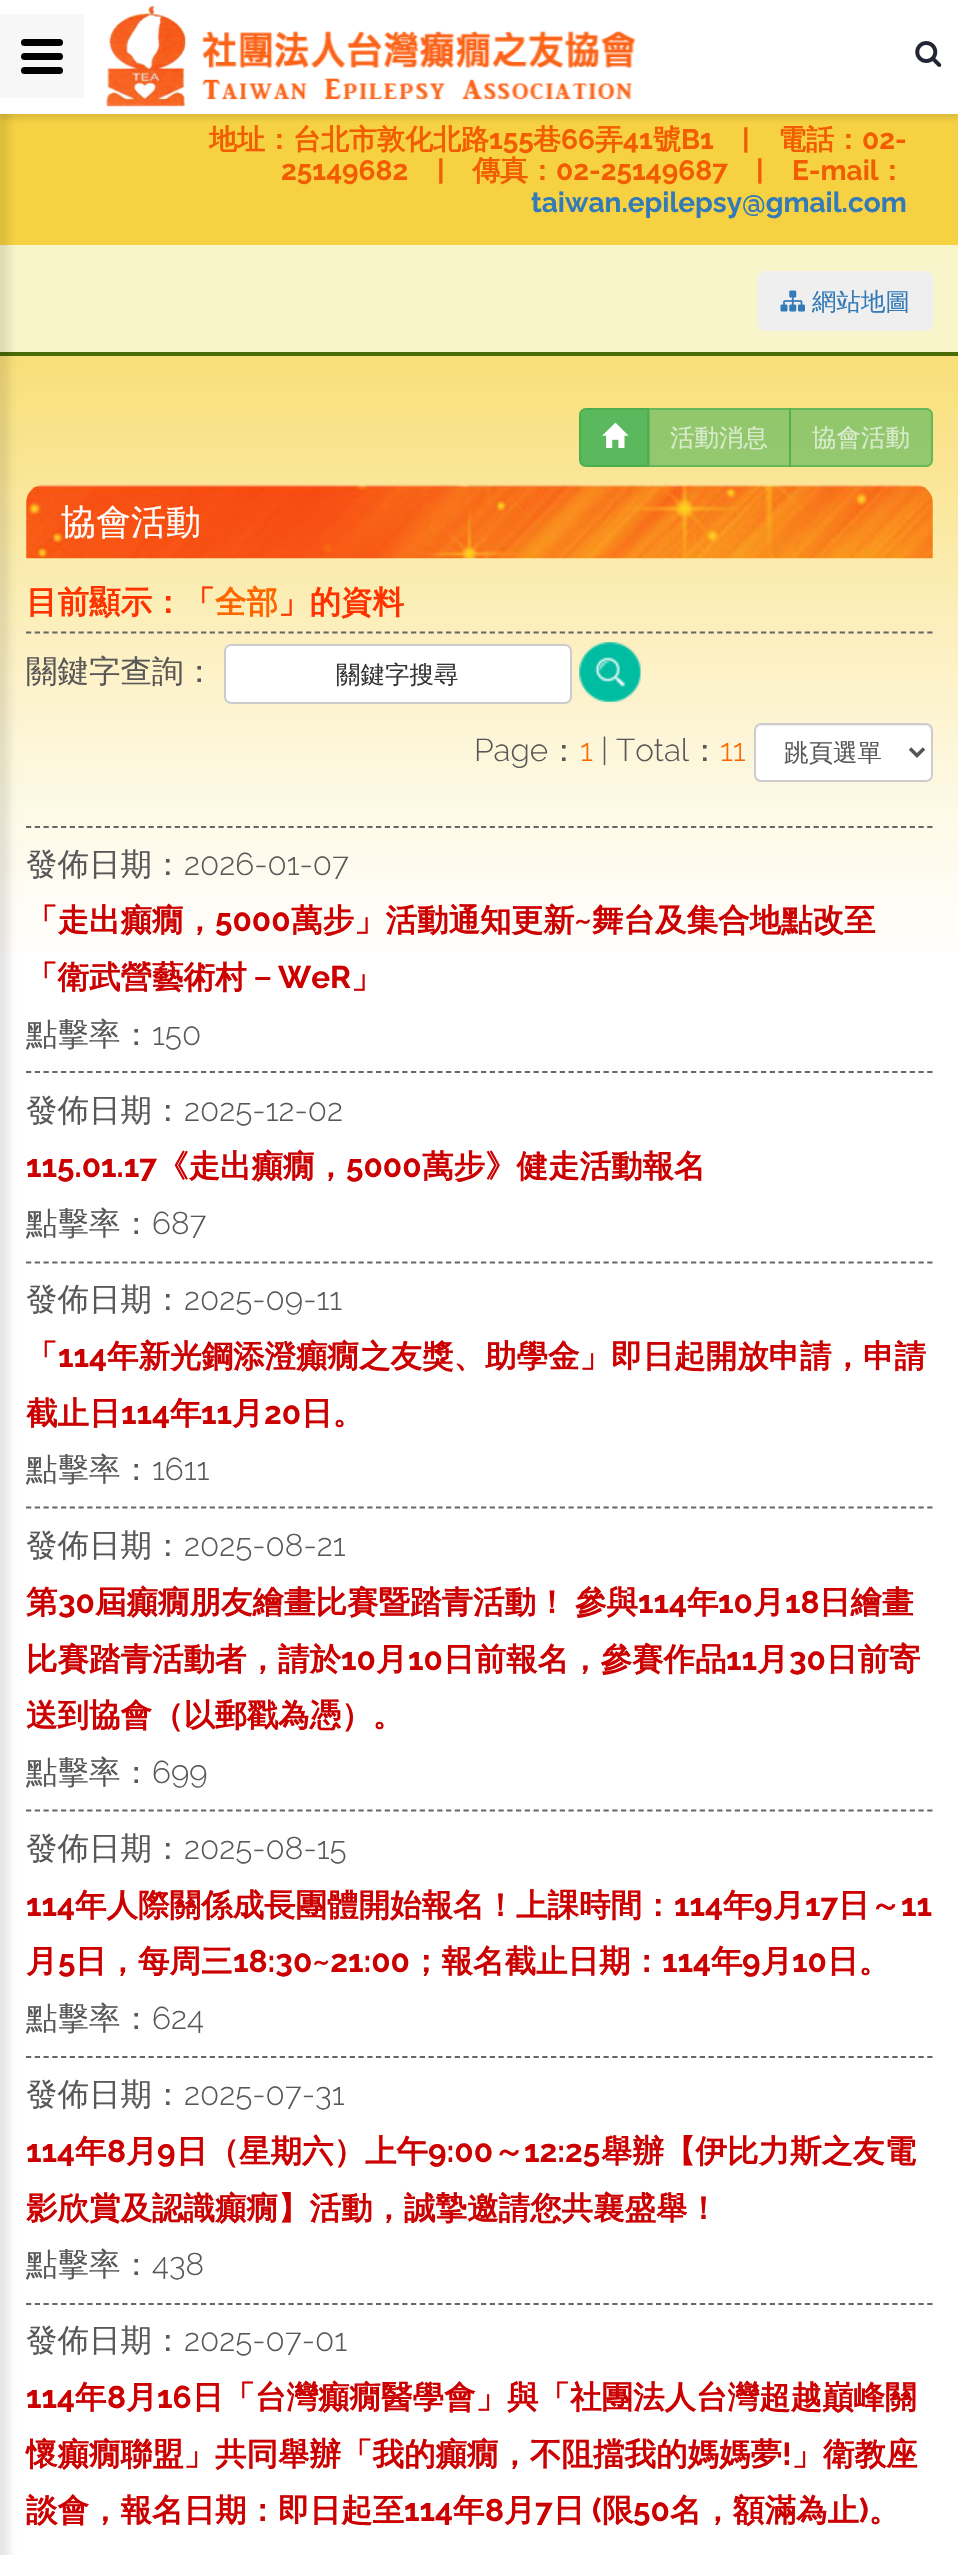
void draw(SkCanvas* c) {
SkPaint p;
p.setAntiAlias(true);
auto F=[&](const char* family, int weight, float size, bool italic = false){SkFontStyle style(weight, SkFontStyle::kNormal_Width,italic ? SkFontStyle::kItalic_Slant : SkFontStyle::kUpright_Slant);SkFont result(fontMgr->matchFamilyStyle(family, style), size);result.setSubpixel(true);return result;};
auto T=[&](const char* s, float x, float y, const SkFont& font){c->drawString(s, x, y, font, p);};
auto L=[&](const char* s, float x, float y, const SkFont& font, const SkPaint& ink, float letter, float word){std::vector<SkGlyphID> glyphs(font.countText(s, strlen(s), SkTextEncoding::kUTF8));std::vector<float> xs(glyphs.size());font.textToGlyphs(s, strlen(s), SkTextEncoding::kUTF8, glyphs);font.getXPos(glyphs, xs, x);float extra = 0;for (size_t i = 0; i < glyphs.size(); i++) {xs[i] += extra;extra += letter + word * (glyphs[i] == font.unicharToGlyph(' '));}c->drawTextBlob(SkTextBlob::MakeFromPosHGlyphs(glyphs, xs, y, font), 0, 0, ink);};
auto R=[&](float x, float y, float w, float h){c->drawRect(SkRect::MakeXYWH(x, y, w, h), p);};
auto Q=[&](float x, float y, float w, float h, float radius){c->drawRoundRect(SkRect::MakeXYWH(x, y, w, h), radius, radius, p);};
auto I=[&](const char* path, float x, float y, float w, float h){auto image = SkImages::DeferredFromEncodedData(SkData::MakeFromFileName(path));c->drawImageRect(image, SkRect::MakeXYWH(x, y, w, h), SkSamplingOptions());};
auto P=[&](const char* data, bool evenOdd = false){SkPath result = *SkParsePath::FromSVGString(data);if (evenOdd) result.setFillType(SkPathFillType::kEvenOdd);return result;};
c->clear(0xffffffff);
I("1.png",0,356,958,596);
p.setColor(0xfff8f5ca);
R(0,245,958,107);
p.setColor(0xfff6d243);
R(0,114,958,131);
p.setColor(0xff4a6a05);
R(0,352,958,4);
p.setColor(0x1a000000);
p.setMaskFilter(SkMaskFilter::MakeBlur(kNormal_SkBlurStyle, 4.5));
c->drawRect(SkRect::MakeXYWH(-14,-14,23,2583),p);
p.setMaskFilter(nullptr);
p.setMaskFilter(SkMaskFilter::MakeBlur(kNormal_SkBlurStyle, 2.5));
c->drawRect(SkRect::MakeXYWH(0,5,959,114),p);
p.setMaskFilter(nullptr);
p.setColor(0xffffffff);
R(0,0,958,114);
p.setColor(0xfff7f7f7);
R(0,14,84,84);
p.setColor(0xff000000);
Q(21,53,42,7,3.5);
Q(21,39,42,7,3.5);
Q(21,67,42,7,3.5);
I("2.png",106,5,530,102);
auto f1 = F("WenQuanYi Zen Hei",700,28);
p.setColor(0xfff15d00);
T("地址：台北市敦化北路",209,149,f1);
auto f2 = F("Raleway",700,28);
T("155",489,149,f2);
T("巷",533,149,f1);
T("66",561,149,f2);
T("弄",595,149,f1);
T("41",623,149,f2);
T("號",653,149,f1);
T("B1",681,149,f2);
T("|",742,149,f2);
T("電話：",778,149,f1);
T("02-",862,149,f2);
T("25149682",281,180,f2);
T("|",437,180,f2);
T("傳真：",472,180,f1);
T("02-25149687",556,180,f2);
T("|",756,180,f2);
T("E-mail",792,180,f2);
T("：",878,180,f1);
p.setColor(0xff337ab7);
T("taiwan.epilepsy@gmail.com",531,212,f2);
I("3.png",915,41,27,26);
p.setColor(0xffefefef);
Q(758,271,175,60,7);
I("4.png",780,290,25,22);
auto f3 = F("WenQuanYi Zen Hei",500,24.5);
p.setColor(0xff337ab7);
T("網站地圖",812,310,f3);
p.setColor(0xff5cb85c);
c->drawPath(P("M586 409h62v57h-62c-3.5 0-6-2.5-6-6v-45c0-3.5 2.5-6 6-6z"),p);
p.setStroke(true);
p.setStrokeWidth(2);
p.setColor(0xff4cae4c);
c->drawPath(P("M586 409h62v57h-62c-3.5 0-6-2.5-6-6v-45c0-3.5 2.5-6 6-6z"),p);
I("5.png",602,422,27,26);
p.setStroke(false);
p.setColor(0xa65cb85c);
R(648,408,143,59);
p.setStroke(true);
p.setColor(0xa64cae4c);
c->drawRect(SkRect::MakeXYWH(649,409,141,57),p);
p.setStroke(false);
p.setColor(0xffd9ebcc);
T("活動消息",670,446,f3);
p.setColor(0xa65cb85c);
c->drawPath(P("M789 408h137c4 0 7 3 7 7v45c0 4-3 7-7 7h-137z"),p);
p.setStroke(true);
p.setColor(0xa64cae4c);
c->drawPath(P("M790 409h136c3.5 0 6 2.5 6 6v45c0 3.5-2.5 6-6 6h-136z"),p);
p.setStroke(false);
p.setColor(0xffd9ebcc);
T("協會活動",812,446,f3);
I("6.png",26,484,907,75);
auto f4 = F("WenQuanYi Zen Hei",500,35);
p.setColor(0xffffffff);
T("協會活動",61,534,f4);
p.setStroke(true);
p.setStrokeWidth(1.8);
p.setColor(0xff666666);
p.setPathEffect(SkDashPathEffect::Make({{5.25f,3.5f}}, 0));
c->drawPath(P("M26 632.5h907"),p);
p.setPathEffect(nullptr);
auto f5 = F("WenQuanYi Zen Hei",700,31.5);
p.setStroke(false);
p.setColor(0xffff3300);
T("目前顯示：「",26,613,f5);
p.setColor(0xffff6600);
T("全部",215,613,f5);
p.setColor(0xffff3300);
T("」的資料",278,613,f5);
auto f6 = F("WenQuanYi Zen Hei",500,31.5);
p.setColor(0xff595757);
T("關鍵字查詢：",26,682,f6);
p.setColor(0xffffffff);
c->drawRoundRect(SkRect::MakeXYWH(225,645,346,58),6,6,p);
p.setStroke(true);
p.setStrokeWidth(2);
p.setColor(0xffcccccc);
c->drawRoundRect(SkRect::MakeXYWH(225,645,346,58),6,6,p);
p.setStroke(false);
p.setColor(0xff333333);
T("關鍵字搜尋",336,683,f3);
I("7.png",579,642,62,60);
auto f7 = F("Raleway",300,31.5);
p.setColor(0xff595757);
T("Page",474,761,f7);
T("：",548,761,f6);
p.setColor(0xffff6600);
T("1",580,761,f7);
p.setColor(0xff595757);
T("| Total",601,761,f7);
T("：",689,761,f6);
p.setColor(0xffff6600);
T("11",720,761,f7);
p.setColor(0xffffffff);
Q(754,723,179,59,7);
p.setColor(0xffececec);
c->drawPath(P("M761 726h165c3 0 5 3 5 6v-2c0-3-2-5-5-5h-165c-3 0-5 2-5 5v2c0-3 2-6 5-6z"),p);
p.setStroke(true);
p.setColor(0xffcccccc);
c->drawRoundRect(SkRect::MakeXYWH(755,724,177,57),6,6,p);
p.setStrokeWidth(3.5);
p.setColor(0xff555555);
c->drawPath(P("M910 748.5l7 7l7-7"),p);
p.setStroke(false);
p.setColor(0xff595757);
T("跳頁選單",784,761,f3);
p.setStroke(true);
p.setStrokeWidth(1.8);
p.setColor(0xff666666);
p.setPathEffect(SkDashPathEffect::Make({{5.25f,3.5f}}, 0));
c->drawPath(P("M26 827h907"),p);
p.setPathEffect(nullptr);
p.setPathEffect(SkDashPathEffect::Make({{5.25f,3.5f}}, 0));
c->drawPath(P("M26 1072h907"),p);
p.setPathEffect(nullptr);
p.setStroke(false);
p.setColor(0xff595757);
T("發佈日期：",26,875,f6);
T("2026-01-07",184,875,f7);
p.setColor(0xffcc0000);
T("「走出癲癇，",26,931,f5);
auto f8 = F("Raleway",700,31.5);
T("5000",215,931,f8);
T("萬步」活動通知更新",291,931,f5);
T("~",574,931,f8);
T("舞台及集合地點改至",592,931,f5);
T("「衛武營藝術村－",26,988,f5);
T("WeR",278,988,f8);
T("」",351,988,f5);
p.setColor(0xff595757);
T("點擊率：",26,1045,f6);
T("150",152,1045,f7);
p.setStroke(true);
p.setColor(0xff666666);
p.setPathEffect(SkDashPathEffect::Make({{5.25f,3.5f}}, 0));
c->drawPath(P("M26 1262.5h907"),p);
p.setPathEffect(nullptr);
p.setStroke(false);
p.setColor(0xff595757);
T("發佈日期：",26,1121,f6);
T("2025-12-02",184,1121,f7);
p.setColor(0xffcc0000);
T("115.01.17",26,1177,f8);
T("《走出癲癇，",157,1177,f5);
T("5000",346,1177,f8);
T("萬步》健走活動報名",422,1177,f5);
p.setColor(0xff595757);
T("點擊率：",26,1234,f6);
T("687",152,1234,f7);
p.setStroke(true);
p.setColor(0xff666666);
p.setPathEffect(SkDashPathEffect::Make({{5.25f,3.5f}}, 0));
c->drawPath(P("M26 1507.5h907"),p);
p.setPathEffect(nullptr);
p.setStroke(false);
p.setColor(0xff595757);
T("發佈日期：",26,1310,f6);
T("2025-09-11",184,1310,f7);
p.setColor(0xffcc0000);
T("「",26,1367,f5);
T("114",58,1367,f8);
T("年新光鋼添澄癲癇之友獎、助學金」即日起開放申請，申請",107,1367,f5);
T("截止日",26,1424,f5);
T("114",121,1424,f8);
T("年",170,1424,f5);
T("11",201,1424,f8);
T("月",232,1424,f5);
T("20",264,1424,f8);
T("日。",301,1424,f5);
p.setColor(0xff595757);
T("點擊率：",26,1480,f6);
T("1611",152,1480,f7);
p.setStroke(true);
p.setColor(0xff666666);
p.setPathEffect(SkDashPathEffect::Make({{5.25f,3.5f}}, 0));
c->drawPath(P("M26 1810.5h907"),p);
p.setPathEffect(nullptr);
p.setStroke(false);
p.setColor(0xff595757);
T("發佈日期：",26,1556,f6);
T("2025-08-21",184,1556,f7);
p.setColor(0xffcc0000);
T("第",26,1613,f5);
T("30",58,1613,f8);
L("屆癲癇朋友繪畫比賽暨踏青活動！ 參與",95,1613,f5,p,0,-2);
T("114",638,1613,f8);
T("年",687,1613,f5);
T("10",718,1613,f8);
T("月",753,1613,f5);
T("18",785,1613,f8);
T("日繪畫",819,1613,f5);
T("比賽踏青活動者，請於",26,1670,f5);
T("10",341,1670,f8);
T("月",376,1670,f5);
T("10",408,1670,f8);
T("日前報名，參賽作品",443,1670,f5);
T("11",726,1670,f8);
T("月",757,1670,f5);
T("30",789,1670,f8);
T("日前寄",826,1670,f5);
T("送到協會（以郵戳為憑）。",26,1726,f5);
p.setColor(0xff595757);
T("點擊率：",26,1783,f6);
T("699",152,1783,f7);
p.setStroke(true);
p.setColor(0xff666666);
p.setPathEffect(SkDashPathEffect::Make({{5.25f,3.5f}}, 0));
c->drawPath(P("M26 2057h907"),p);
p.setPathEffect(nullptr);
p.setStroke(false);
p.setColor(0xff595757);
T("發佈日期：",26,1859,f6);
T("2025-08-15",184,1859,f7);
p.setColor(0xffcc0000);
T("114",26,1916,f8);
T("年人際關係成長團體開始報名！上課時間：",75,1916,f5);
T("114",674,1916,f8);
T("年",723,1916,f5);
T("9",754,1916,f8);
T("月",773,1916,f5);
T("17",805,1916,f8);
T("日～",838,1916,f5);
T("11",901,1916,f8);
T("月",26,1972,f5);
T("5",58,1972,f8);
T("日，每周三",75,1972,f5);
T("18:30~21:00",233,1972,f8);
T("；報名截止日期：",410,1972,f5);
T("114",662,1972,f8);
T("年",711,1972,f5);
T("9",742,1972,f8);
T("月",761,1972,f5);
T("10",792,1972,f8);
T("日。",827,1972,f5);
p.setColor(0xff595757);
T("點擊率：",26,2029,f6);
T("624",152,2029,f7);
p.setStroke(true);
p.setColor(0xff666666);
p.setPathEffect(SkDashPathEffect::Make({{5.25f,3.5f}}, 0));
c->drawPath(P("M26 2304h907"),p);
p.setPathEffect(nullptr);
p.setStroke(false);
p.setColor(0xff595757);
T("發佈日期：",26,2105,f6);
T("2025-07-31",184,2105,f7);
p.setColor(0xffcc0000);
T("114",26,2162,f8);
T("年",75,2162,f5);
T("8",107,2162,f8);
T("月",126,2162,f5);
T("9",157,2162,f8);
T("日（星期六）上午",176,2162,f5);
T("9:00",428,2162,f8);
T("～",493,2162,f5);
T("12:25",524,2162,f8);
T("舉辦【伊比力斯之友電",601,2162,f5);
T("影欣賞及認識癲癇】活動，誠摯邀請您共襄盛舉！",26,2219,f5);
p.setColor(0xff595757);
T("點擊率：",26,2275,f6);
T("438",152,2275,f7);
T("發佈日期：",26,2351,f6);
T("2025-07-01",184,2351,f7);
p.setColor(0xffcc0000);
T("114",26,2408,f8);
T("年",75,2408,f5);
T("8",107,2408,f8);
T("月",126,2408,f5);
T("16",157,2408,f8);
T("日「台灣癲癇醫學會」與「社團法人台灣超越巔峰關",192,2408,f5);
T("懷癲癇聯盟」共同舉辦「我的癲癇，不阻擋我的媽媽夢 」衛教座",26,2465,f5);
T("!",782,2465,f8);
T("談會，報名日期：即日起至",26,2521,f5);
T("年",453,2521,f5);
T("月",504,2521,f5);
T("日",553,2521,f5);
T("(",592,2521,f8);
T("限",602,2521,f5);
T("名，額滿為止 。",670,2521,f5);
T("114",404,2521,f8);
T("8",485,2521,f8);
T("7",535,2521,f8);
T("50",633,2521,f8);
T(")",859,2521,f8);
}
